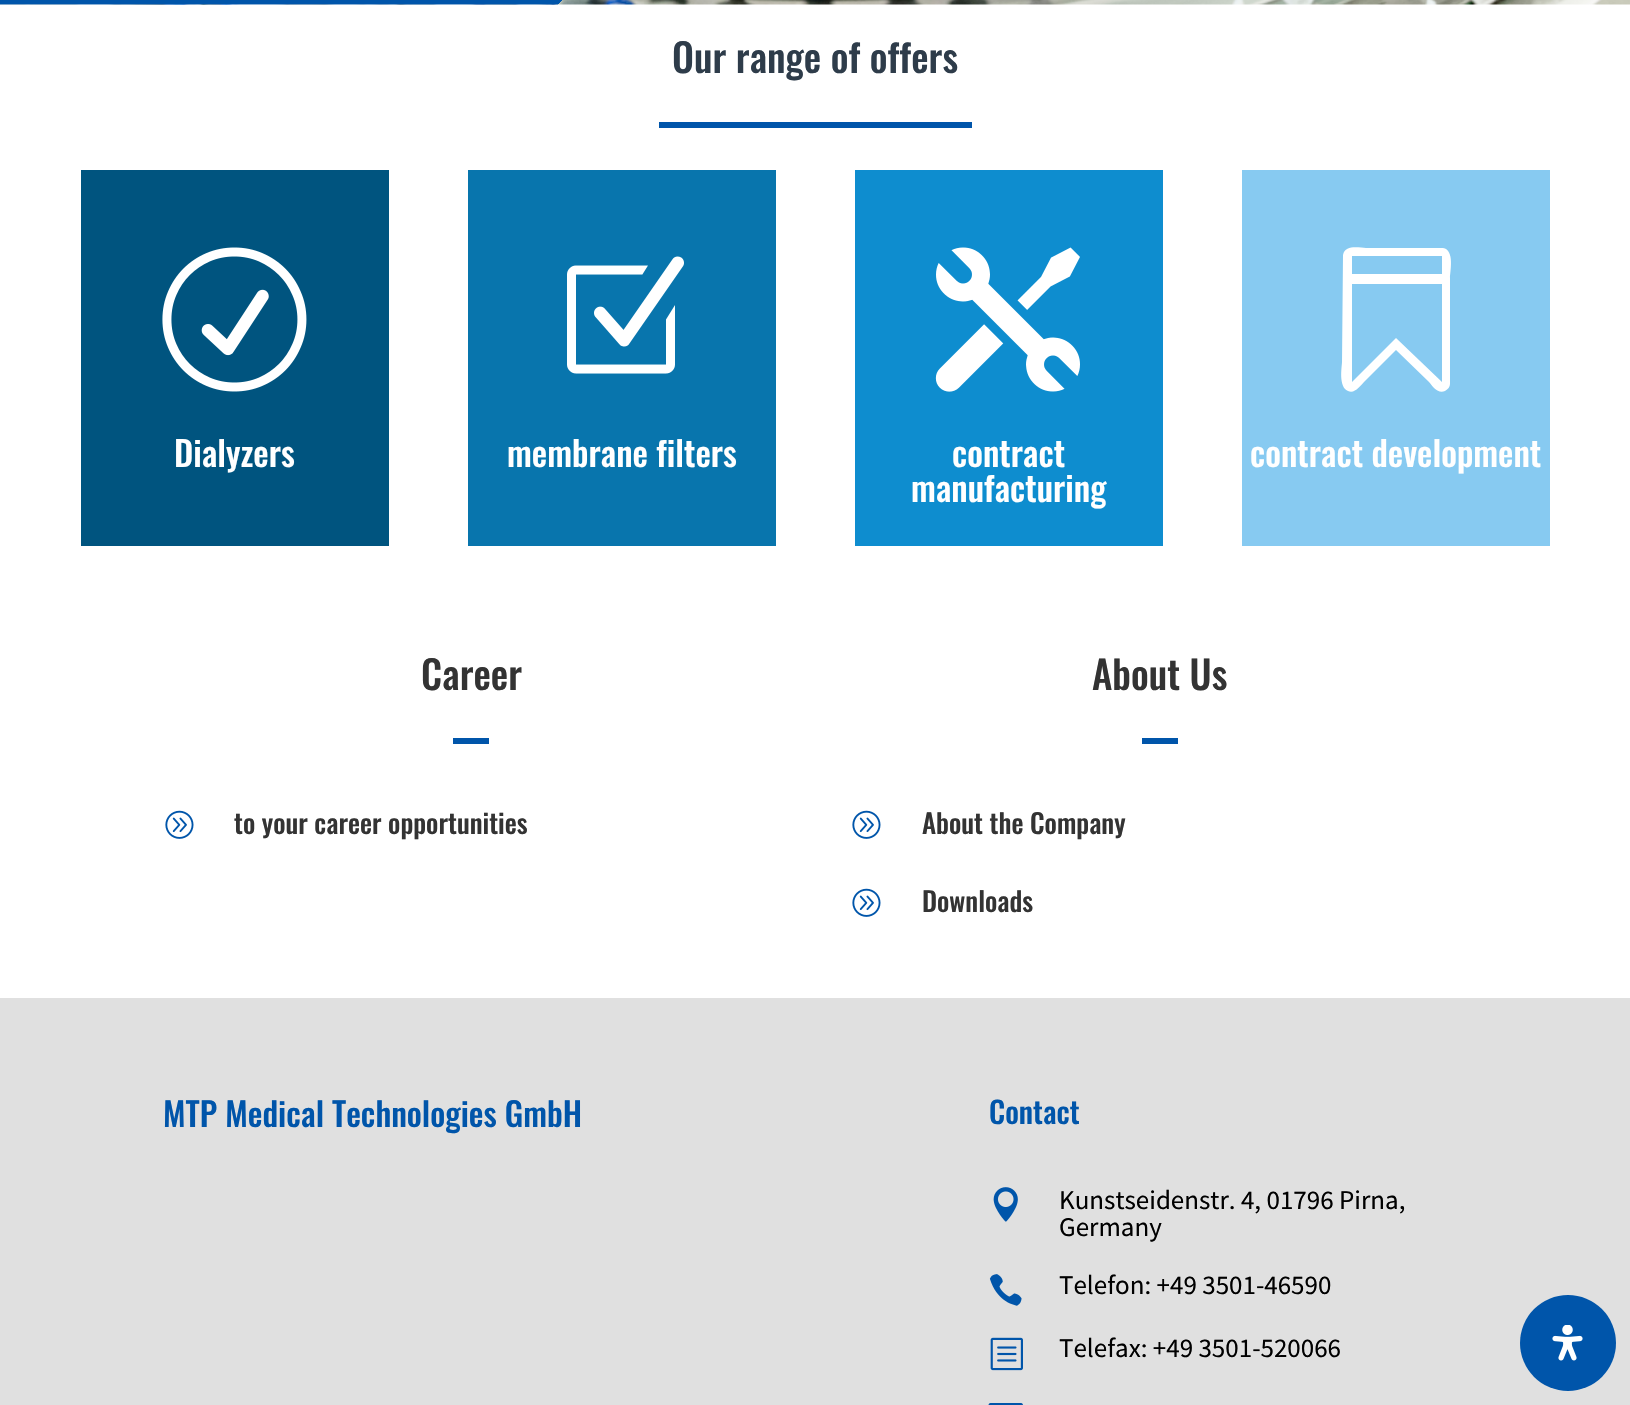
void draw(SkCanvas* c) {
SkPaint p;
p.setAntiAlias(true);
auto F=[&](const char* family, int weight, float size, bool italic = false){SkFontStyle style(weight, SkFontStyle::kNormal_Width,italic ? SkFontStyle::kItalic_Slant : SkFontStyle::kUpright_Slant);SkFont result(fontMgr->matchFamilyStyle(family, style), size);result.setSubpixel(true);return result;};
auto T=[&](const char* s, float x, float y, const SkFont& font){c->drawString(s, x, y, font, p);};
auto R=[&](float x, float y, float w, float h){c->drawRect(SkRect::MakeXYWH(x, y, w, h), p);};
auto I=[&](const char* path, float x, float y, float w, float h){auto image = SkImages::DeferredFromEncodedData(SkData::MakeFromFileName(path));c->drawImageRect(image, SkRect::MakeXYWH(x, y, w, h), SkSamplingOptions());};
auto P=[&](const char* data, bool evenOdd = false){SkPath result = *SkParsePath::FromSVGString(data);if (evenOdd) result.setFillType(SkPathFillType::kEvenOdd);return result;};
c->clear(0xffffffff);
I("1.png",0,0,1630,5);
auto f1 = F("Oswald",500,39);
p.setColor(0xff2e3c4a);
T("Our range of offers",672,73,f1);
p.setColor(0xff0055aa);
R(659,122,313,6);
p.setColor(0xff00547f);
R(81,170,308,376);
I("2.png",162,247,145,145);
auto f2 = F("Oswald",500,34.5);
p.setColor(0xffffffff);
T("Dialyzers",174,467,f2);
p.setColor(0xff0875ad);
R(468,170,308,376);
I("3.png",567,256,117,118);
p.setColor(0xffffffff);
T("membrane filters",507,467,f2);
p.setColor(0xff0e8dcf);
R(855,170,308,376);
I("4.png",935,247,145,145);
p.setColor(0xffffffff);
T("contract",952,467,f2);
T("manufacturing",911,502,f2);
p.setColor(0xff87caf1);
R(1242,170,308,376);
p.setColor(0xffffffff);
c->drawPath(P("M1348 391c7 3 12-5 16-9l32-32l33 32c4 5 9 12 16 9c3-2 5-4 5-7v-106c0-6 5-28-7-30h-77c-6 0-21-4-23 7l-1 107c0 4-4 25 6 29zm48-53l-44 44v-98h90v98zm46-82v18h-90v-18z"),p);
T("contract development",1250,467,f2);
p.setColor(0xff333333);
T("Career",421,690,f1);
p.setColor(0xff0055aa);
R(453,738,36,6);
I("5.png",165,810,29,29);
auto f3 = F("Oswald",500,27);
p.setColor(0xff333333);
T("to your career opportunities",234,834,f3);
T("About Us",1092,690,f1);
p.setColor(0xff0055aa);
R(1142,738,36,6);
I("5.png",852,810,29,29);
p.setColor(0xff333333);
T("About the Company",922,834,f3);
I("5.png",852,888,29,29);
T("Downloads",922,912,f3);
p.setColor(0xffe0e0e0);
R(0,998,1630,407);
auto f4 = F("Oswald",500,33);
p.setColor(0xff0055aa);
T("MTP Medical Technologies GmbH",163,1127,f4);
auto f5 = F("Oswald",500,30);
T("Contact",989,1124,f5);
I("6.png",993,1187,25,35);
auto f6 = F("Source Sans Pro",400,27);
p.setColor(0xff000000);
T("Kunstseidenstr. 4, 01796 Pirna,",1059,1209,f6);
T("Germany",1059,1236,f6);
I("7.png",989,1274,33,32);
T("Telefon: +49 3501-46590",1059,1294,f6);
I("8.png",990,1337,33,34);
T("Telefax: +49 3501-520066",1059,1357,f6);
I("9.png",988,1403,35,2);
p.setColor(0xff0055aa);
c->drawCircle(1568,1343,48,p);
I("10.png",1552,1325,31,36);
}
